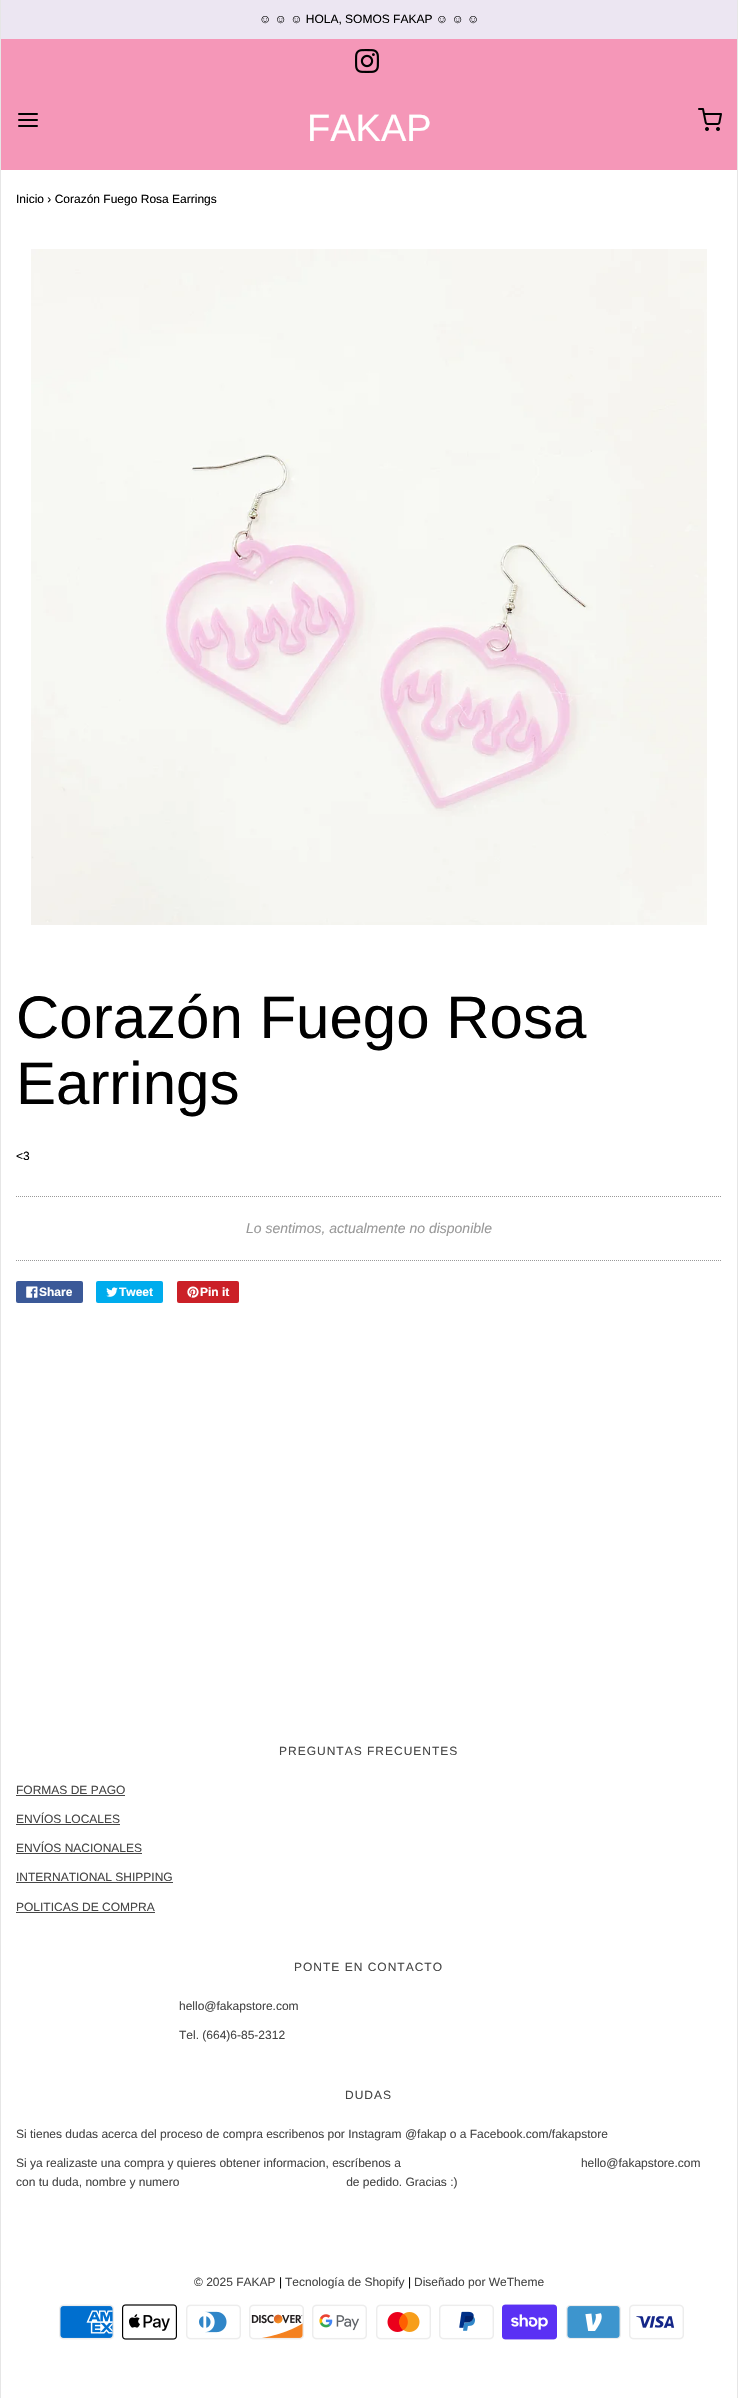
void draw(SkCanvas* c) {
SkPaint p;
p.setAntiAlias(true);
auto F=[&](const char* family, int weight, float size, bool italic = false){SkFontStyle style(weight, SkFontStyle::kNormal_Width,italic ? SkFontStyle::kItalic_Slant : SkFontStyle::kUpright_Slant);SkFont result(fontMgr->matchFamilyStyle(family, style), size);result.setSubpixel(true);return result;};
auto T=[&](const char* s, float x, float y, const SkFont& font){c->drawString(s, x, y, font, p);};
auto L=[&](const char* s, float x, float y, const SkFont& font, const SkPaint& ink, float letter, float word){std::vector<SkGlyphID> glyphs(font.countText(s, strlen(s), SkTextEncoding::kUTF8));std::vector<float> xs(glyphs.size());font.textToGlyphs(s, strlen(s), SkTextEncoding::kUTF8, glyphs);font.getXPos(glyphs, xs, x);float extra = 0;for (size_t i = 0; i < glyphs.size(); i++) {xs[i] += extra;extra += letter + word * (glyphs[i] == font.unicharToGlyph(' '));}c->drawTextBlob(SkTextBlob::MakeFromPosHGlyphs(glyphs, xs, y, font), 0, 0, ink);};
auto R=[&](float x, float y, float w, float h){c->drawRect(SkRect::MakeXYWH(x, y, w, h), p);};
auto Q=[&](float x, float y, float w, float h, float radius){c->drawRoundRect(SkRect::MakeXYWH(x, y, w, h), radius, radius, p);};
auto I=[&](const char* path, float x, float y, float w, float h){auto image = SkImages::DeferredFromEncodedData(SkData::MakeFromFileName(path));c->drawImageRect(image, SkRect::MakeXYWH(x, y, w, h), SkSamplingOptions());};
auto P=[&](const char* data, bool evenOdd = false){SkPath result = *SkParsePath::FromSVGString(data);if (evenOdd) result.setFillType(SkPathFillType::kEvenOdd);return result;};
c->clear(0xffffffff);
p.setColor(0xffe6e6e6);
R(737,0,1,2398);
R(0,0,1,2398);
p.setColor(0xffece6f2);
R(1,0,736,39);
auto f1 = F("Liberation Sans",400,12);
p.setColor(0xff000000);
T("☺ ☺ ☺ HOLA, SOMOS FAKAP ☺ ☺ ☺",259,23,f1);
p.setColor(0xfff597b8);
R(1,39,736,131);
I("1.png",355,49,24,24);
p.setStroke(true);
p.setStrokeWidth(2);
p.setStrokeCap(SkPaint::kRound_Cap);
p.setStrokeJoin(SkPaint::kRound_Join);
p.setColor(0xff000000);
c->drawPath(P("M19 120h18m-18-6h18m-18 12h18"),p);
auto f2 = F("Liberation Sans",400,38);
p.setStroke(false);
p.setColor(0xffffffff);
T("FAKAP",307,141,f2);
I("2.png",698,108,24,23);
p.setColor(0xff000000);
T("Inicio › Corazón Fuego Rosa Earrings",16,203,f1);
I("3.png",31,249,676,676);
auto f3 = F("Liberation Sans",400,60);
T("Corazón Fuego Rosa",16,1038,f3);
T("Earrings",16,1104,f3);
T("<3",16,1160,f1);
p.setStroke(true);
p.setStrokeWidth(1);
p.setStrokeCap(SkPaint::kButt_Cap);
p.setStrokeJoin(SkPaint::kMiter_Join);
p.setColor(0xff999999);
p.setPathEffect(SkDashPathEffect::Make({{1,1}}, 0));
c->drawPath(P("M16 1196.5h706"),p);
p.setPathEffect(nullptr);
p.setPathEffect(SkDashPathEffect::Make({{1,1}}, 0));
c->drawPath(P("M16 1260.5h706"),p);
p.setPathEffect(nullptr);
auto f4 = F("Liberation Sans",400,14,true);
p.setStroke(false);
T("Lo sentimos, actualmente no disponible",246,1233,f4);
p.setColor(0xff3b5998);
Q(16,1281,67,22,2);
I("4.png",26,1286,12,12);
auto f5 = F("Liberation Sans",700,12);
p.setColor(0xffffffff);
T("Share",39,1296,f5);
p.setColor(0xff00aced);
Q(96,1281,67,22,2);
I("5.png",106,1287,12,10);
p.setColor(0xffffffff);
T("Tweet",119,1296,f5);
p.setColor(0xffcb2027);
Q(177,1281,62,22,2);
I("6.png",187,1286,12,12);
p.setColor(0xffffffff);
T("Pin it",200,1296,f5);
p.setColor(0xff464646);
L("PREGUNTAS FRECUENTES",279,1755,f1,p,1,0);
T("FORMAS DE PAGO",16,1794,f1);
R(16,1795,109,1);
T("ENVÍOS LOCALES",16,1823,f1);
R(16,1824,104,1);
T("ENVÍOS NACIONALES",16,1852,f1);
R(16,1853,126,1);
T("INTERNATIONAL SHIPPING",16,1881,f1);
R(16,1882,157,1);
T("POLITICAS DE COMPRA",16,1911,f1);
R(16,1912,139,1);
L("PONTE EN CONTACTO",294,1971,f1,p,1,0);
T("hello@fakapstore.com",179,2010,f1);
T("Tel. (664)6-85-2312",179,2039,f1);
L("DUDAS",345,2099,f1,p,1,0);
T("Si tienes dudas acerca del proceso de compra escribenos por Instagram @fakap o a Facebook.com/fakapstore",16,2138,f1);
T("Si ya realizaste una compra y quieres obtener informacion, escríbenos a                                                      hello@fakapstore.com",16,2167,f1);
T("con tu duda, nombre y numero                                                  de pedido. Gracias :)",16,2186,f1);
T("© 2025 FAKAP",194,2286,f1);
p.setColor(0xff000000);
T("|",279,2286,f1);
p.setColor(0xff464646);
T("Tecnología de Shopify",285,2286,f1);
p.setColor(0xff000000);
T("|",408,2286,f1);
p.setColor(0xff464646);
T("Diseñado por WeTheme",414,2286,f1);
I("7.png",59,2304,55,36);
I("8.png",122,2304,55,36);
I("9.png",186,2304,55,36);
I("10.png",249,2304,55,36);
I("11.png",312,2304,55,36);
I("12.png",376,2304,55,36);
I("13.png",439,2304,55,36);
I("14.png",502,2304,55,36);
I("15.png",566,2305,55,34);
I("16.png",629,2304,55,36);
}
